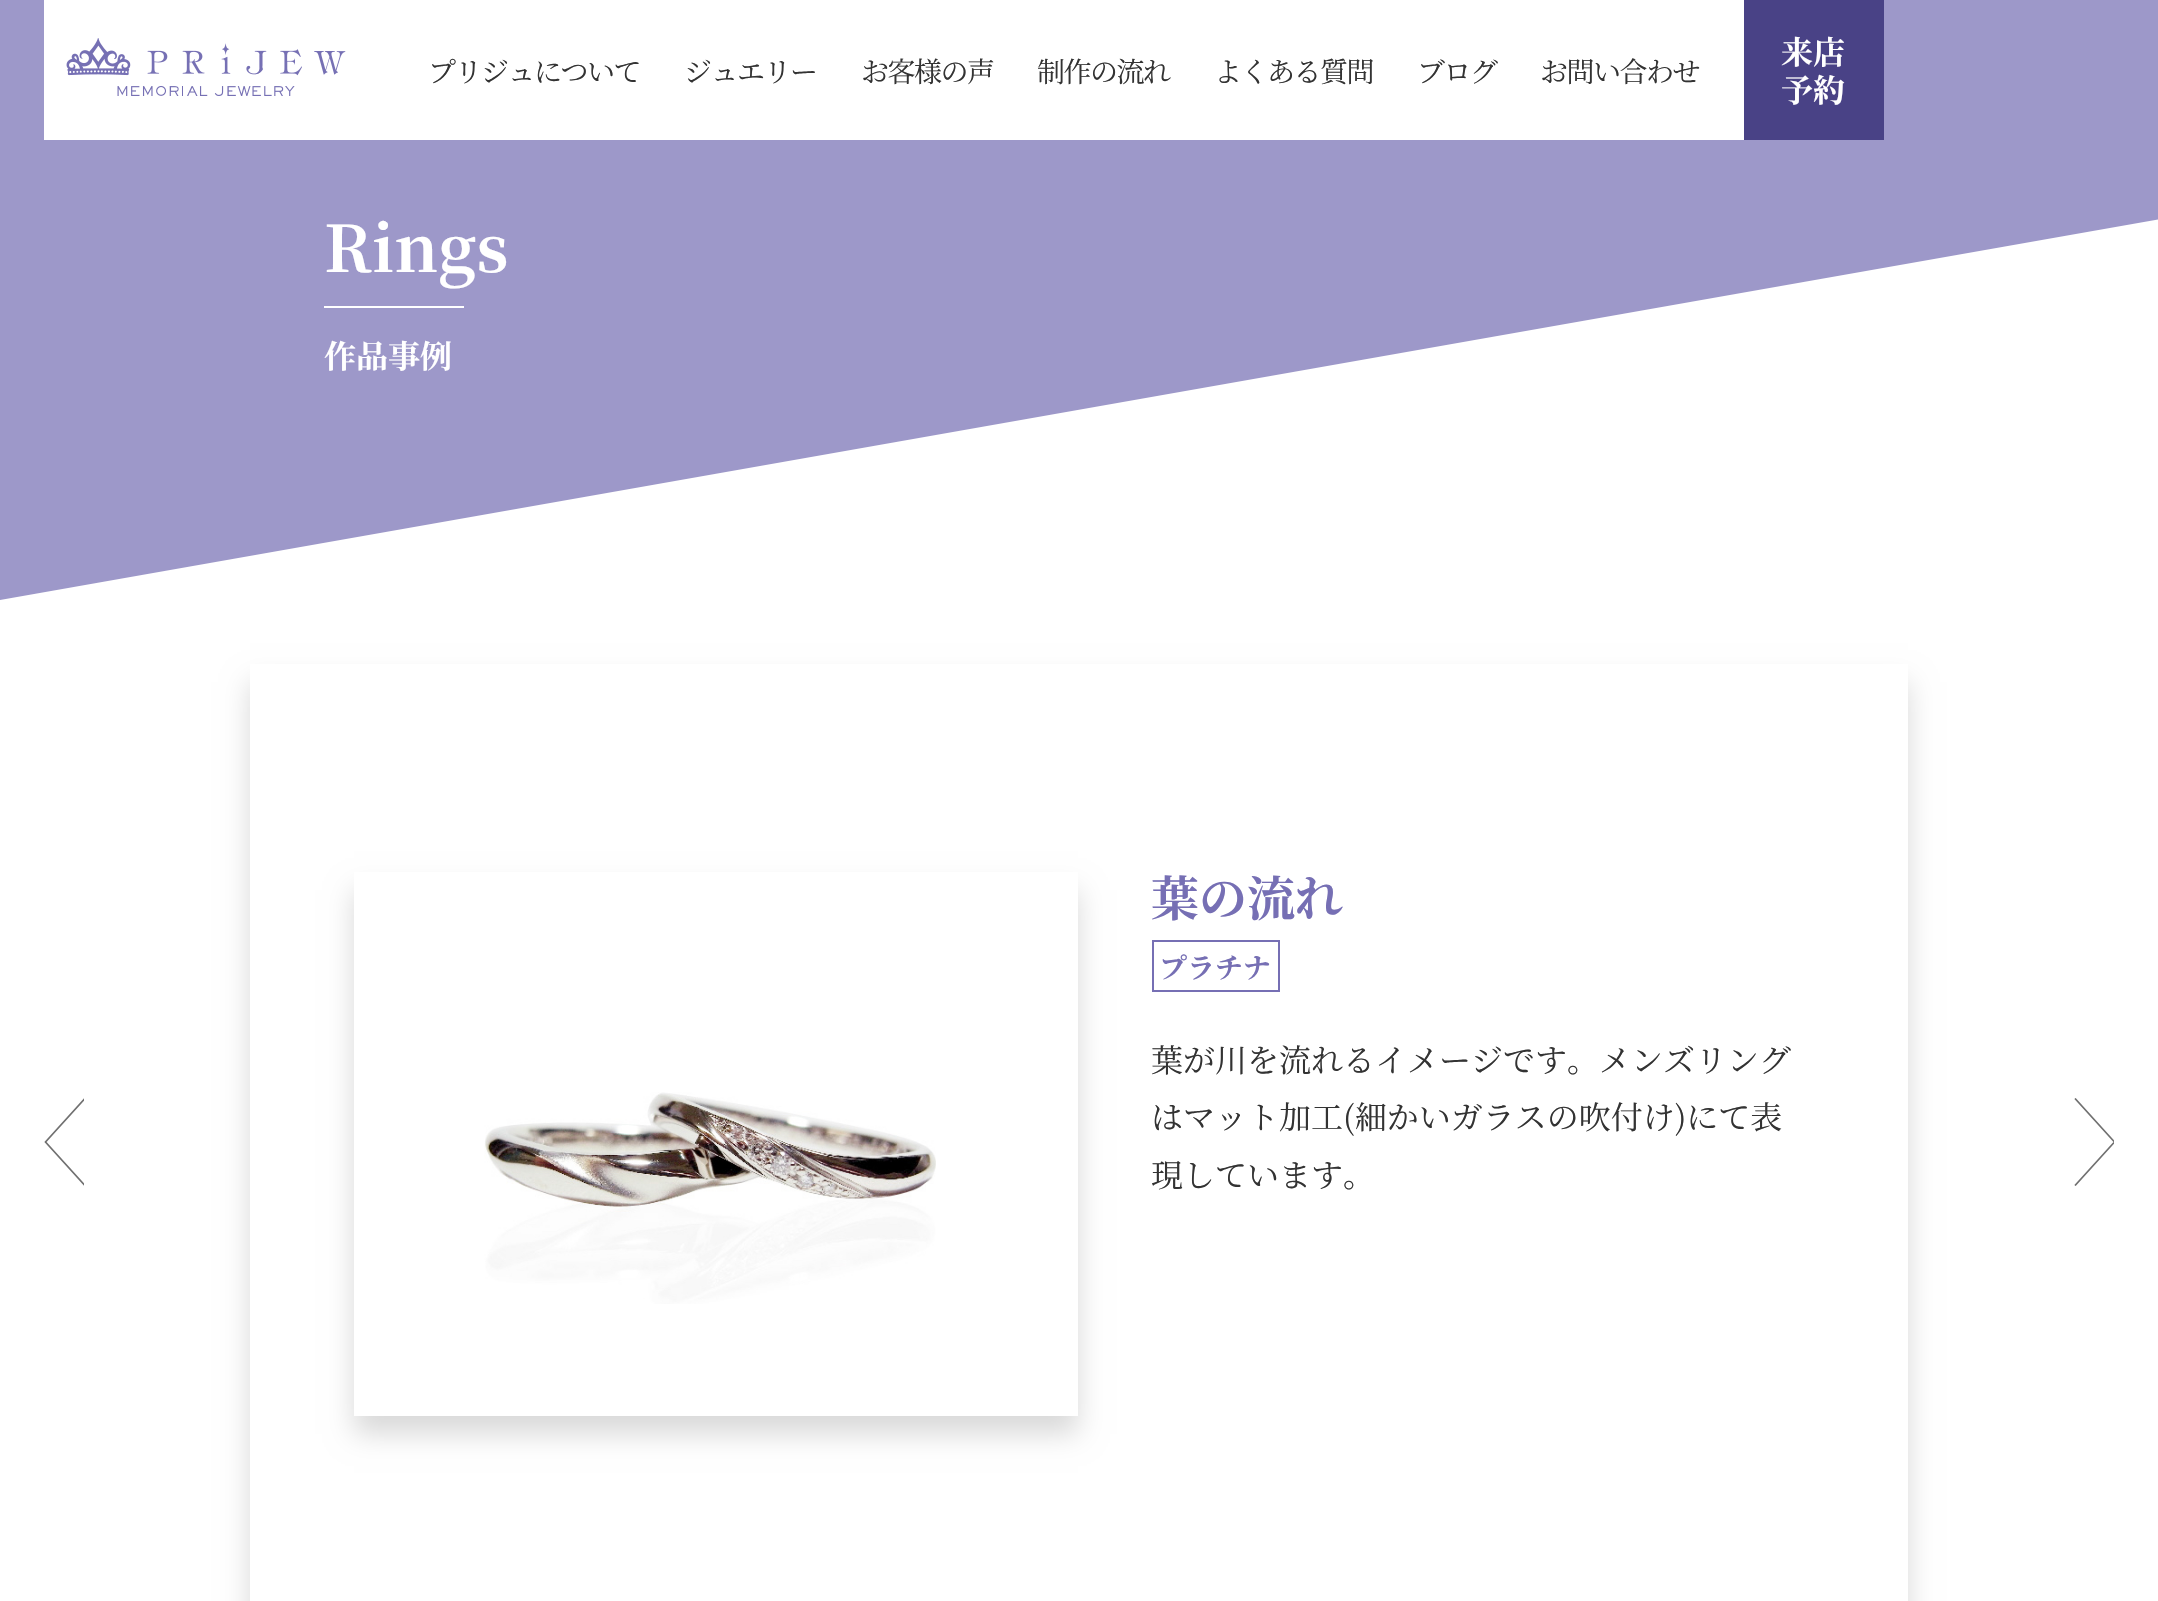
void draw(SkCanvas* c) {
SkPaint p;
p.setAntiAlias(true);
auto F=[&](const char* family, int weight, float size, bool italic = false){SkFontStyle style(weight, SkFontStyle::kNormal_Width,italic ? SkFontStyle::kItalic_Slant : SkFontStyle::kUpright_Slant);SkFont result(fontMgr->matchFamilyStyle(family, style), size);result.setSubpixel(true);return result;};
auto T=[&](const char* s, float x, float y, const SkFont& font){c->drawString(s, x, y, font, p);};
auto L=[&](const char* s, float x, float y, const SkFont& font, const SkPaint& ink, float letter, float word){std::vector<SkGlyphID> glyphs(font.countText(s, strlen(s), SkTextEncoding::kUTF8));std::vector<float> xs(glyphs.size());font.textToGlyphs(s, strlen(s), SkTextEncoding::kUTF8, glyphs);font.getXPos(glyphs, xs, x);float extra = 0;for (size_t i = 0; i < glyphs.size(); i++) {xs[i] += extra;extra += letter + word * (glyphs[i] == font.unicharToGlyph(' '));}c->drawTextBlob(SkTextBlob::MakeFromPosHGlyphs(glyphs, xs, y, font), 0, 0, ink);};
auto R=[&](float x, float y, float w, float h){c->drawRect(SkRect::MakeXYWH(x, y, w, h), p);};
auto I=[&](const char* path, float x, float y, float w, float h){auto image = SkImages::DeferredFromEncodedData(SkData::MakeFromFileName(path));c->drawImageRect(image, SkRect::MakeXYWH(x, y, w, h), SkSamplingOptions());};
auto P=[&](const char* data, bool evenOdd = false){SkPath result = *SkParsePath::FromSVGString(data);if (evenOdd) result.setFillType(SkPathFillType::kEvenOdd);return result;};
c->clear(0xffffffff);
p.setColor(0xff9d98c9);
R(0,0,2158,600);
p.setColor(0xffffffff);
R(44,0,1700,140);
I("1.png",66,38,280,58);
auto f1 = F("Noto Serif CJK JP",400,28);
p.setColor(0xff333333);
L("プリジュについて",428,82,f1,p,-1.5,0);
L("ジュエリー",684,82,f1,p,-1.5,0);
L("お客様の声",861,82,f1,p,-1.5,0);
L("制作の流れ",1037,82,f1,p,-1.5,0);
L("よくある質問",1214,82,f1,p,-1.5,0);
L("ブログ",1417,82,f1,p,-1.5,0);
L("お問い合わせ",1540,82,f1,p,-1.5,0);
p.setColor(0xff494286);
R(1744,0,140,140);
auto f2 = F("Noto Serif CJK JP",700,32);
p.setColor(0xffffffff);
T("来店",1781,64,f2);
T("予約",1781,102,f2);
R(324,306,140,2);
c->drawPath(P("M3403 0h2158l-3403 600h-2158z"),p);
auto f3 = F("Noto Serif CJK JP",700,64);
T("Rings",324,272,f3);
T("作品事例",324,368,f2);
c->save();
c->clipRect(SkRect::MakeXYWH(44,1098,40,88));
p.setStroke(true);
p.setStrokeWidth(1.7);
p.setColor(0xff707070);
c->drawPath(P("M85 1098.5l-39.5 43.5l39.5 43.5"),p);
c->restore();
c->save();
c->clipPath(P("M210 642h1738v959h-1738zm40 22h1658v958h-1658z",true),true);
p.setStroke(false);
p.setColor(0x26000000);
p.setMaskFilter(SkMaskFilter::MakeBlur(kNormal_SkBlurStyle, 13));
c->drawRect(SkRect::MakeXYWH(250,682,1658,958),p);
p.setMaskFilter(nullptr);
c->restore();
c->save();
c->clipPath(P("M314 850h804v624h-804zm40 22h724v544h-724z",true),true);
p.setMaskFilter(SkMaskFilter::MakeBlur(kNormal_SkBlurStyle, 13));
c->drawRect(SkRect::MakeXYWH(354,890,724,544),p);
p.setMaskFilter(nullptr);
c->restore();
I("2.png",484,1092,452,212);
auto f4 = F("Noto Serif CJK JP",700,48);
p.setColor(0xff766fb4);
T("葉の流れ",1151,916,f4);
p.setStroke(true);
p.setStrokeWidth(2);
c->drawRect(SkRect::MakeXYWH(1153,941,126,50),p);
auto f5 = F("Noto Serif CJK JP",700,28);
p.setStroke(false);
T("プラチナ",1159,978,f5);
auto f6 = F("Noto Serif CJK JP",400,32);
p.setColor(0xff333333);
T("葉が川を流れるイメージです。メンズリング",1151,1072,f6);
T("はマット加工(細かいガラスの吹付け)にて表",1151,1129,f6);
T("現しています。",1151,1187,f6);
c->save();
c->clipRect(SkRect::MakeXYWH(2074,1098,40,88));
p.setStroke(true);
p.setStrokeWidth(1.7);
p.setColor(0xff707070);
c->drawPath(P("M2075 1098.5l39.5 43.5l-39.5 43.5"),p);
c->restore();
}
